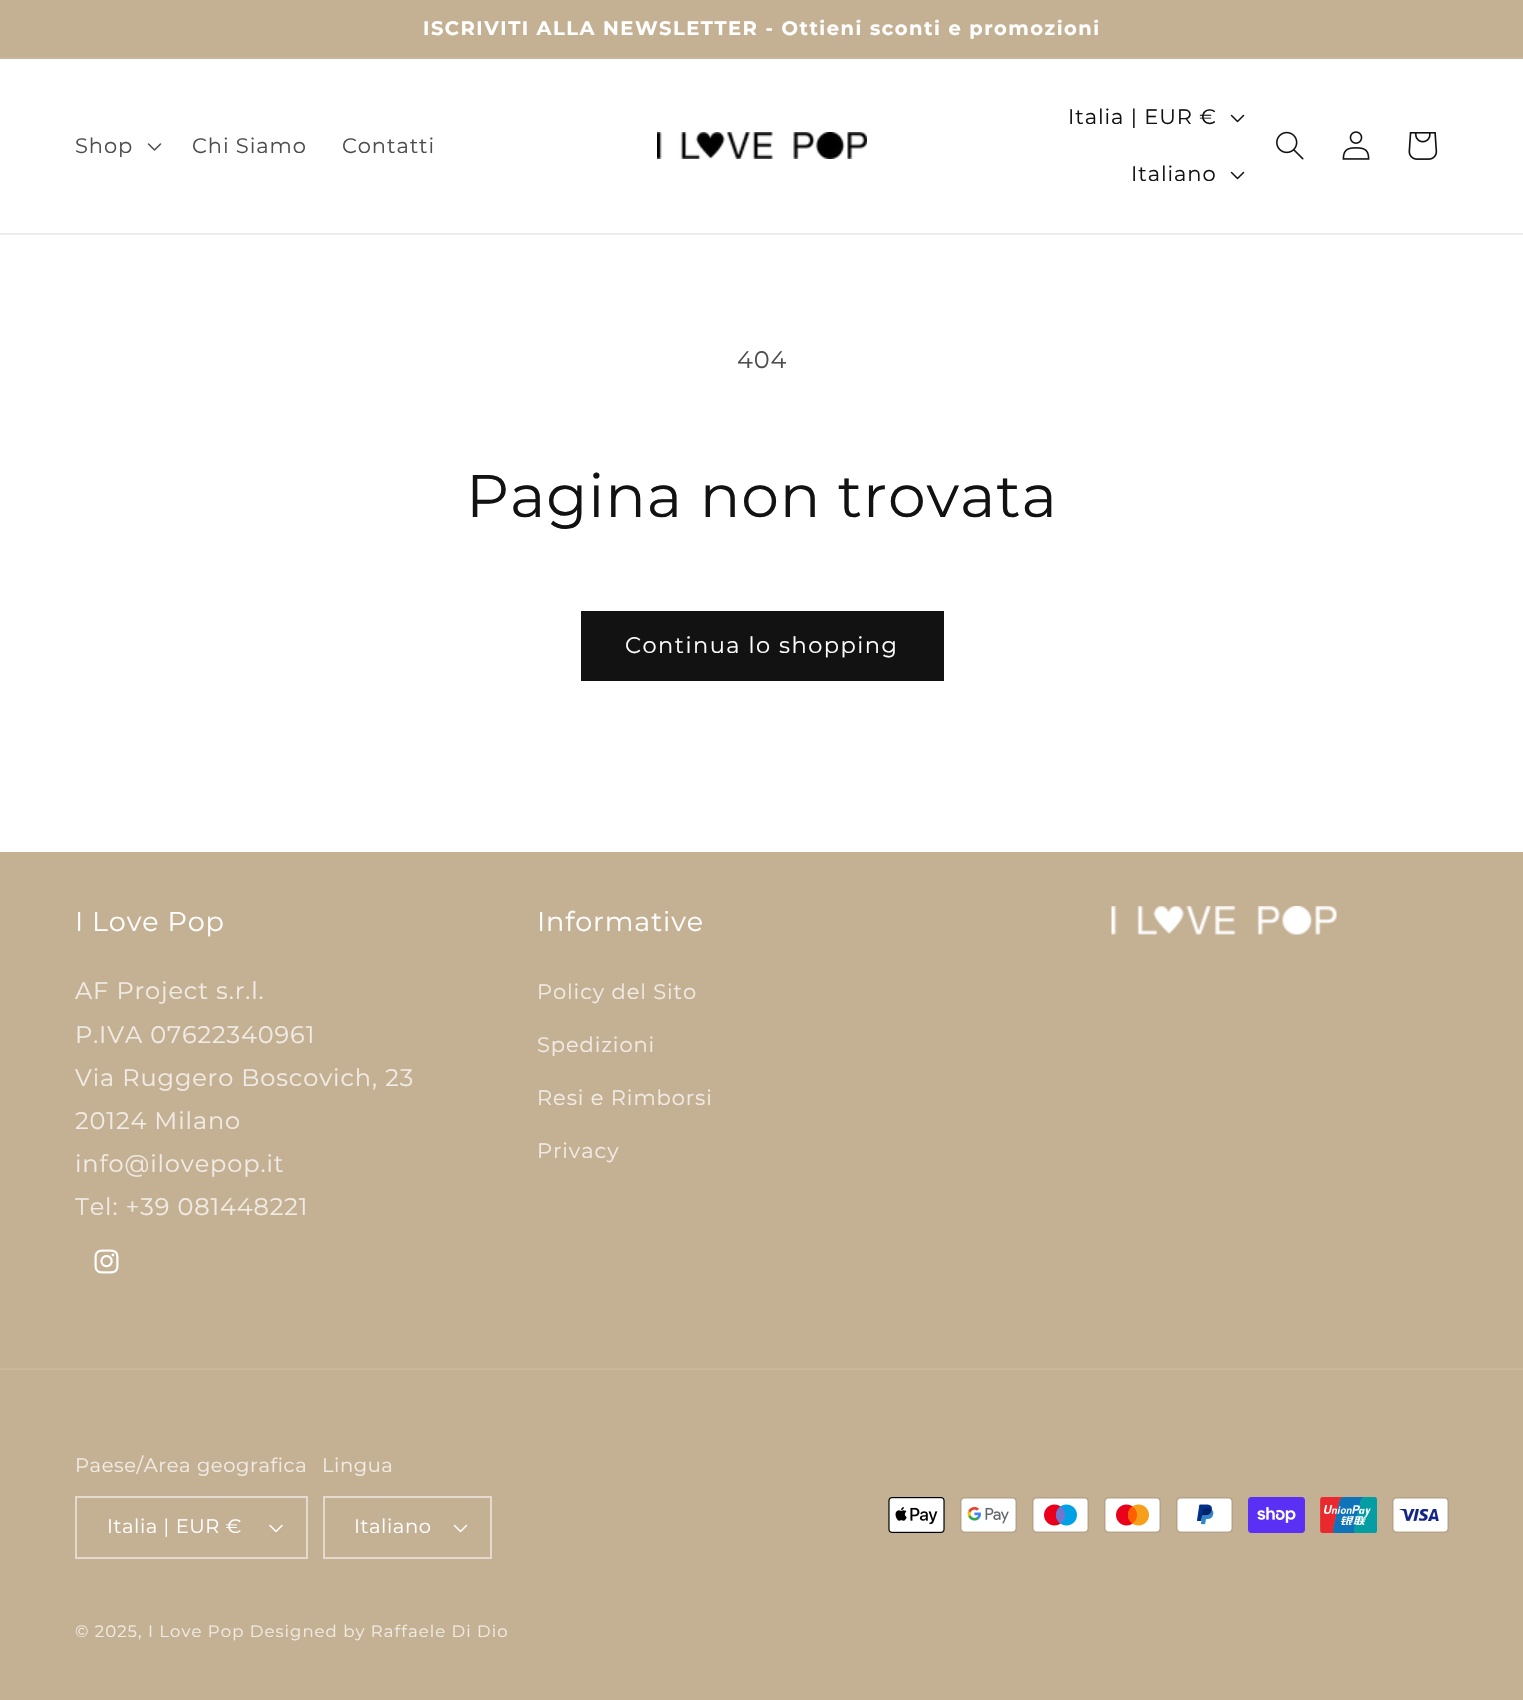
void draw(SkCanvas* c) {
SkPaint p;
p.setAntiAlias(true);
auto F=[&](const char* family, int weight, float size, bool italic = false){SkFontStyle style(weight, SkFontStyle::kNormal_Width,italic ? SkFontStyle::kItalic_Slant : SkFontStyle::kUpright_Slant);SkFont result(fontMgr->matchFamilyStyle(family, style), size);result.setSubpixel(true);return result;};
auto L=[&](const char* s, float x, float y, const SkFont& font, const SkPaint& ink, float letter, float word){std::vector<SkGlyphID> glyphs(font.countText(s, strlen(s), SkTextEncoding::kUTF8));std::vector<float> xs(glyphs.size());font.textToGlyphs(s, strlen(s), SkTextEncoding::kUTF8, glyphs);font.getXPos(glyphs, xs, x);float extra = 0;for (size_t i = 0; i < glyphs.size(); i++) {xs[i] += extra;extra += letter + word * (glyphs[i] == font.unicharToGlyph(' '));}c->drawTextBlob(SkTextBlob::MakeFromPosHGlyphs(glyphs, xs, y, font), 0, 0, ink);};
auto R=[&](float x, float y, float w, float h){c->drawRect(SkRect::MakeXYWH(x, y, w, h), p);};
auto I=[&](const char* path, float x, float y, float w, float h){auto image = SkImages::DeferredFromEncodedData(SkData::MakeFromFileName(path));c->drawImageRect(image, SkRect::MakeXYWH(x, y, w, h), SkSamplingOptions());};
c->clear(0xffffffff);
p.setColor(0xffc4b093);
R(0,0,1523,57);
p.setColor(0xffc9b69c);
R(0,57,1523,2);
auto f1 = F("Montserrat",700,19.5);
p.setColor(0xffffffff);
L("ISCRIVITI ALLA NEWSLETTER - Ottieni sconti e promozioni",423,35,f1,p,1.5,0);
p.setColor(0xffececec);
R(0,233,1523,2);
auto f2 = F("Montserrat",400,21);
p.setColor(0xff4d4d4d);
L("Shop",75,153,f2,p,.9,0);
I("1.png",147,143,15,8);
L("Chi Siamo",192,153,f2,p,.9,0);
L("Contatti",342,153,f2,p,.9,0);
I("2.png",657,132,210,27);
p.setColor(0xff121212);
L("Italia | EUR €",1068,124,f2,p,.9,0);
I("3.png",1230,114,15,9);
L("Italiano",1131,181,f2,p,.9,0);
I("3.png",1230,171,15,9);
I("4.png",1276,131,28,29);
I("5.png",1342,131,28,29);
I("6.png",1408,132,30,28);
auto f3 = F("Montserrat",400,24);
p.setColor(0xff4d4d4d);
L("404",737,368,f3,p,.9,0);
auto f4 = F("Montserrat",400,60);
p.setColor(0xff121212);
L("Pagina non trovata",466,517,f4,p,.9,0);
R(581,611,363,70);
auto f5 = F("Montserrat",400,22.5);
p.setColor(0xffffffff);
L("Continua lo shopping",625,653,f5,p,1.5,0);
p.setColor(0xffc4b093);
R(0,852,1523,848);
auto f6 = F("Montserrat",400,27);
p.setColor(0xffffffff);
L("I Love Pop",75,931,f6,p,.9,0);
p.setColor(0xfff0ebe4);
L("AF Project s.r.l.",75,999,f3,p,.9,0);
L("P.IVA 07622340961",75,1043,f3,p,.9,0);
L("Via Ruggero Boscovich, 23",75,1086,f3,p,.9,0);
L("20124 Milano",75,1129,f3,p,.9,0);
L("info@ilovepop.it",75,1172,f3,p,.9,0);
L("Tel: +39 081448221",75,1215,f3,p,.9,0);
I("7.png",94,1249,25,25);
p.setColor(0xffffffff);
L("Informative",537,931,f6,p,.9,0);
p.setColor(0xfff0ebe4);
L("Policy del Sito",537,999,f2,p,.9,0);
L("Spedizioni",537,1052,f2,p,.9,0);
L("Resi e Rimborsi",537,1105,f2,p,.9,0);
L("Privacy",537,1158,f2,p,.9,0);
I("8.png",1111,906,226,29);
p.setColor(0xffc9b69c);
R(0,1368,1523,2);
auto f7 = F("Montserrat",400,19.5);
p.setColor(0xfff0ebe4);
L("Paese/Area geografica",75,1472,f7,p,.6,0);
I("9.png",269,1524,14,9);
p.setStroke(true);
p.setStrokeWidth(2);
p.setColor(0xffe4dbce);
c->drawRect(SkRect::MakeXYWH(76,1497,231,61),p);
p.setStroke(false);
p.setColor(0xffffffff);
L("Italia | EUR €",107,1533,f7,p,.6,0);
p.setColor(0xfff0ebe4);
L("Lingua",322,1472,f7,p,.6,0);
I("10.png",453,1524,15,9);
p.setStroke(true);
p.setColor(0xffe4dbce);
c->drawRect(SkRect::MakeXYWH(324,1497,167,61),p);
p.setStroke(false);
p.setColor(0xffffffff);
L("Italiano",354,1533,f7,p,.6,0);
I("11.png",888,1497,57,36);
I("12.png",960,1497,57,36);
I("13.png",1032,1497,57,36);
I("14.png",1104,1497,57,36);
I("15.png",1176,1497,57,36);
I("16.png",1248,1497,57,36);
I("17.png",1320,1497,57,36);
I("18.png",1392,1497,57,36);
auto f8 = F("Montserrat",400,16.5);
p.setColor(0xfff0ebe4);
L("© 2025, I Love Pop Designed by Raffaele Di Dio",75,1637,f8,p,1.05,0);
}
